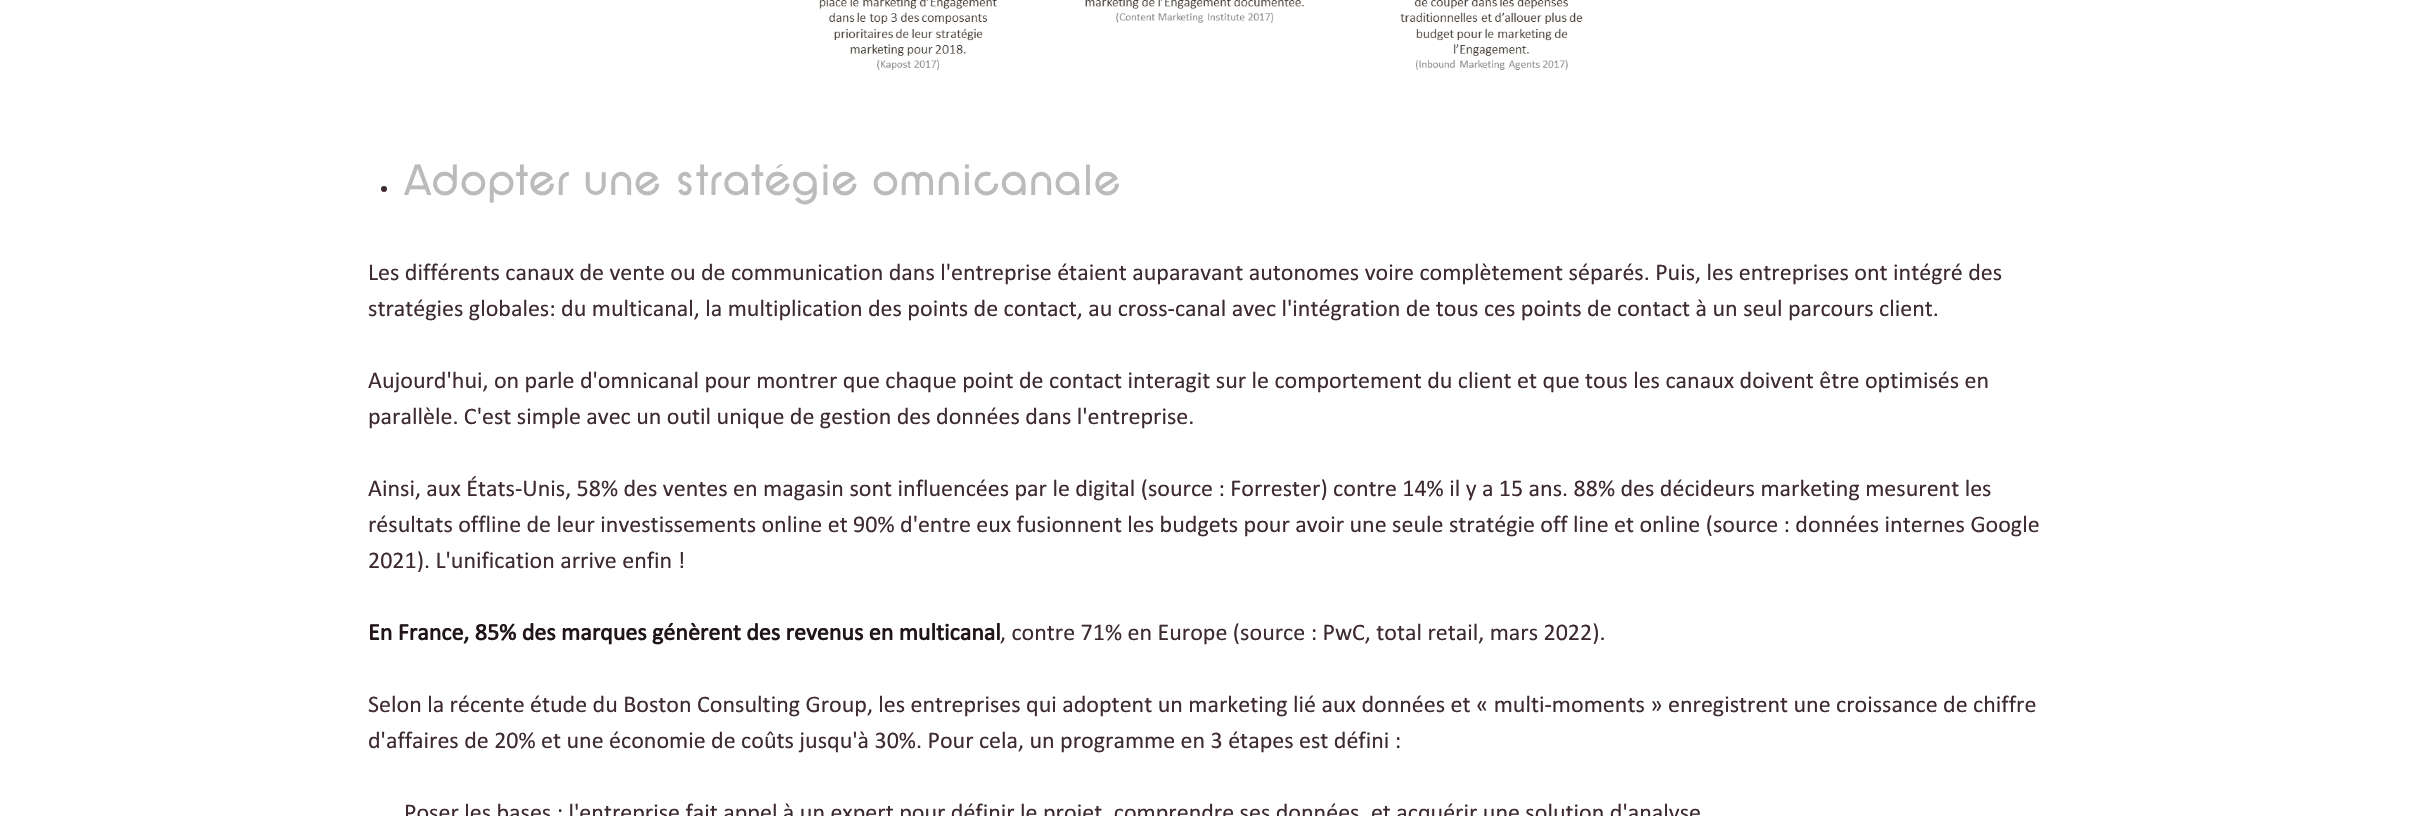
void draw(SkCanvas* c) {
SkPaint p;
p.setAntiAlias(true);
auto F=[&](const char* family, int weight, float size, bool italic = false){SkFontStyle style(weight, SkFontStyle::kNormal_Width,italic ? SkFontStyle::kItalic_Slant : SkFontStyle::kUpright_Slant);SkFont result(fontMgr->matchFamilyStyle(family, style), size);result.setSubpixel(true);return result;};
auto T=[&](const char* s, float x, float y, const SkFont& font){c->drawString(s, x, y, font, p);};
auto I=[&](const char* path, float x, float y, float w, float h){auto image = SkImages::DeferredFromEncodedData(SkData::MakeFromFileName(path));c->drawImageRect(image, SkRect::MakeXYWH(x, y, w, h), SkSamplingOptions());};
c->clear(0xffffffff);
I("1.png",819,0,764,70);
p.setColor(0xff3e2b30);
c->drawCircle(384,189,3,p);
auto f1 = F("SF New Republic",400,45.6);
p.setColor(0xffbbbbbb);
T("Adopter une stratégie omnicanale",404,195,f1);
auto f2 = F("Calibri",400,24);
p.setColor(0xff3e2b30);
T("Les différents canaux de vente ou de communication dans l'entreprise étaient auparavant autonomes voire complètement séparés. Puis, les entreprises ont intégré des",368,280,f2);
T("stratégies globales: du multicanal, la multiplication des points de contact, au cross-canal avec l'intégration de tous ces points de contact à un seul parcours client.",368,316,f2);
T("Aujourd'hui, on parle d'omnicanal pour montrer que chaque point de contact interagit sur le comportement du client et que tous les canaux doivent être optimisés en",368,388,f2);
T("parallèle. C'est simple avec un outil unique de gestion des données dans l'entreprise.",368,424,f2);
T("Ainsi, aux États-Unis, 58% des ventes en magasin sont influencées par le digital (source : Forrester) contre 14% il y a 15 ans. 88% des décideurs marketing mesurent les",368,496,f2);
T("résultats offline de leur investissements online et 90% d'entre eux fusionnent les budgets pour avoir une seule stratégie off line et online (source : données internes Google",368,532,f2);
T("2021). L'unification arrive enfin !",368,568,f2);
auto f3 = F("Calibri",700,24);
p.setColor(0xff201619);
T("En France, 85% des marques génèrent des revenus en multicanal",368,640,f3);
p.setColor(0xff3e2b30);
T(", contre 71% en Europe (source : PwC, total retail, mars 2022).",1000,640,f2);
T("Selon la récente étude du Boston Consulting Group, les entreprises qui adoptent un marketing lié aux données et « multi-moments » enregistrent une croissance de chiffre",368,712,f2);
T("d'affaires de 20% et une économie de coûts jusqu'à 30%. Pour cela, un programme en 3 étapes est défini :",368,748,f2);
T("Poser les bases : l'entreprise fait appel à un expert pour définir le projet, comprendre ses données, et acquérir une solution d'analyse",404,820,f2);
}
